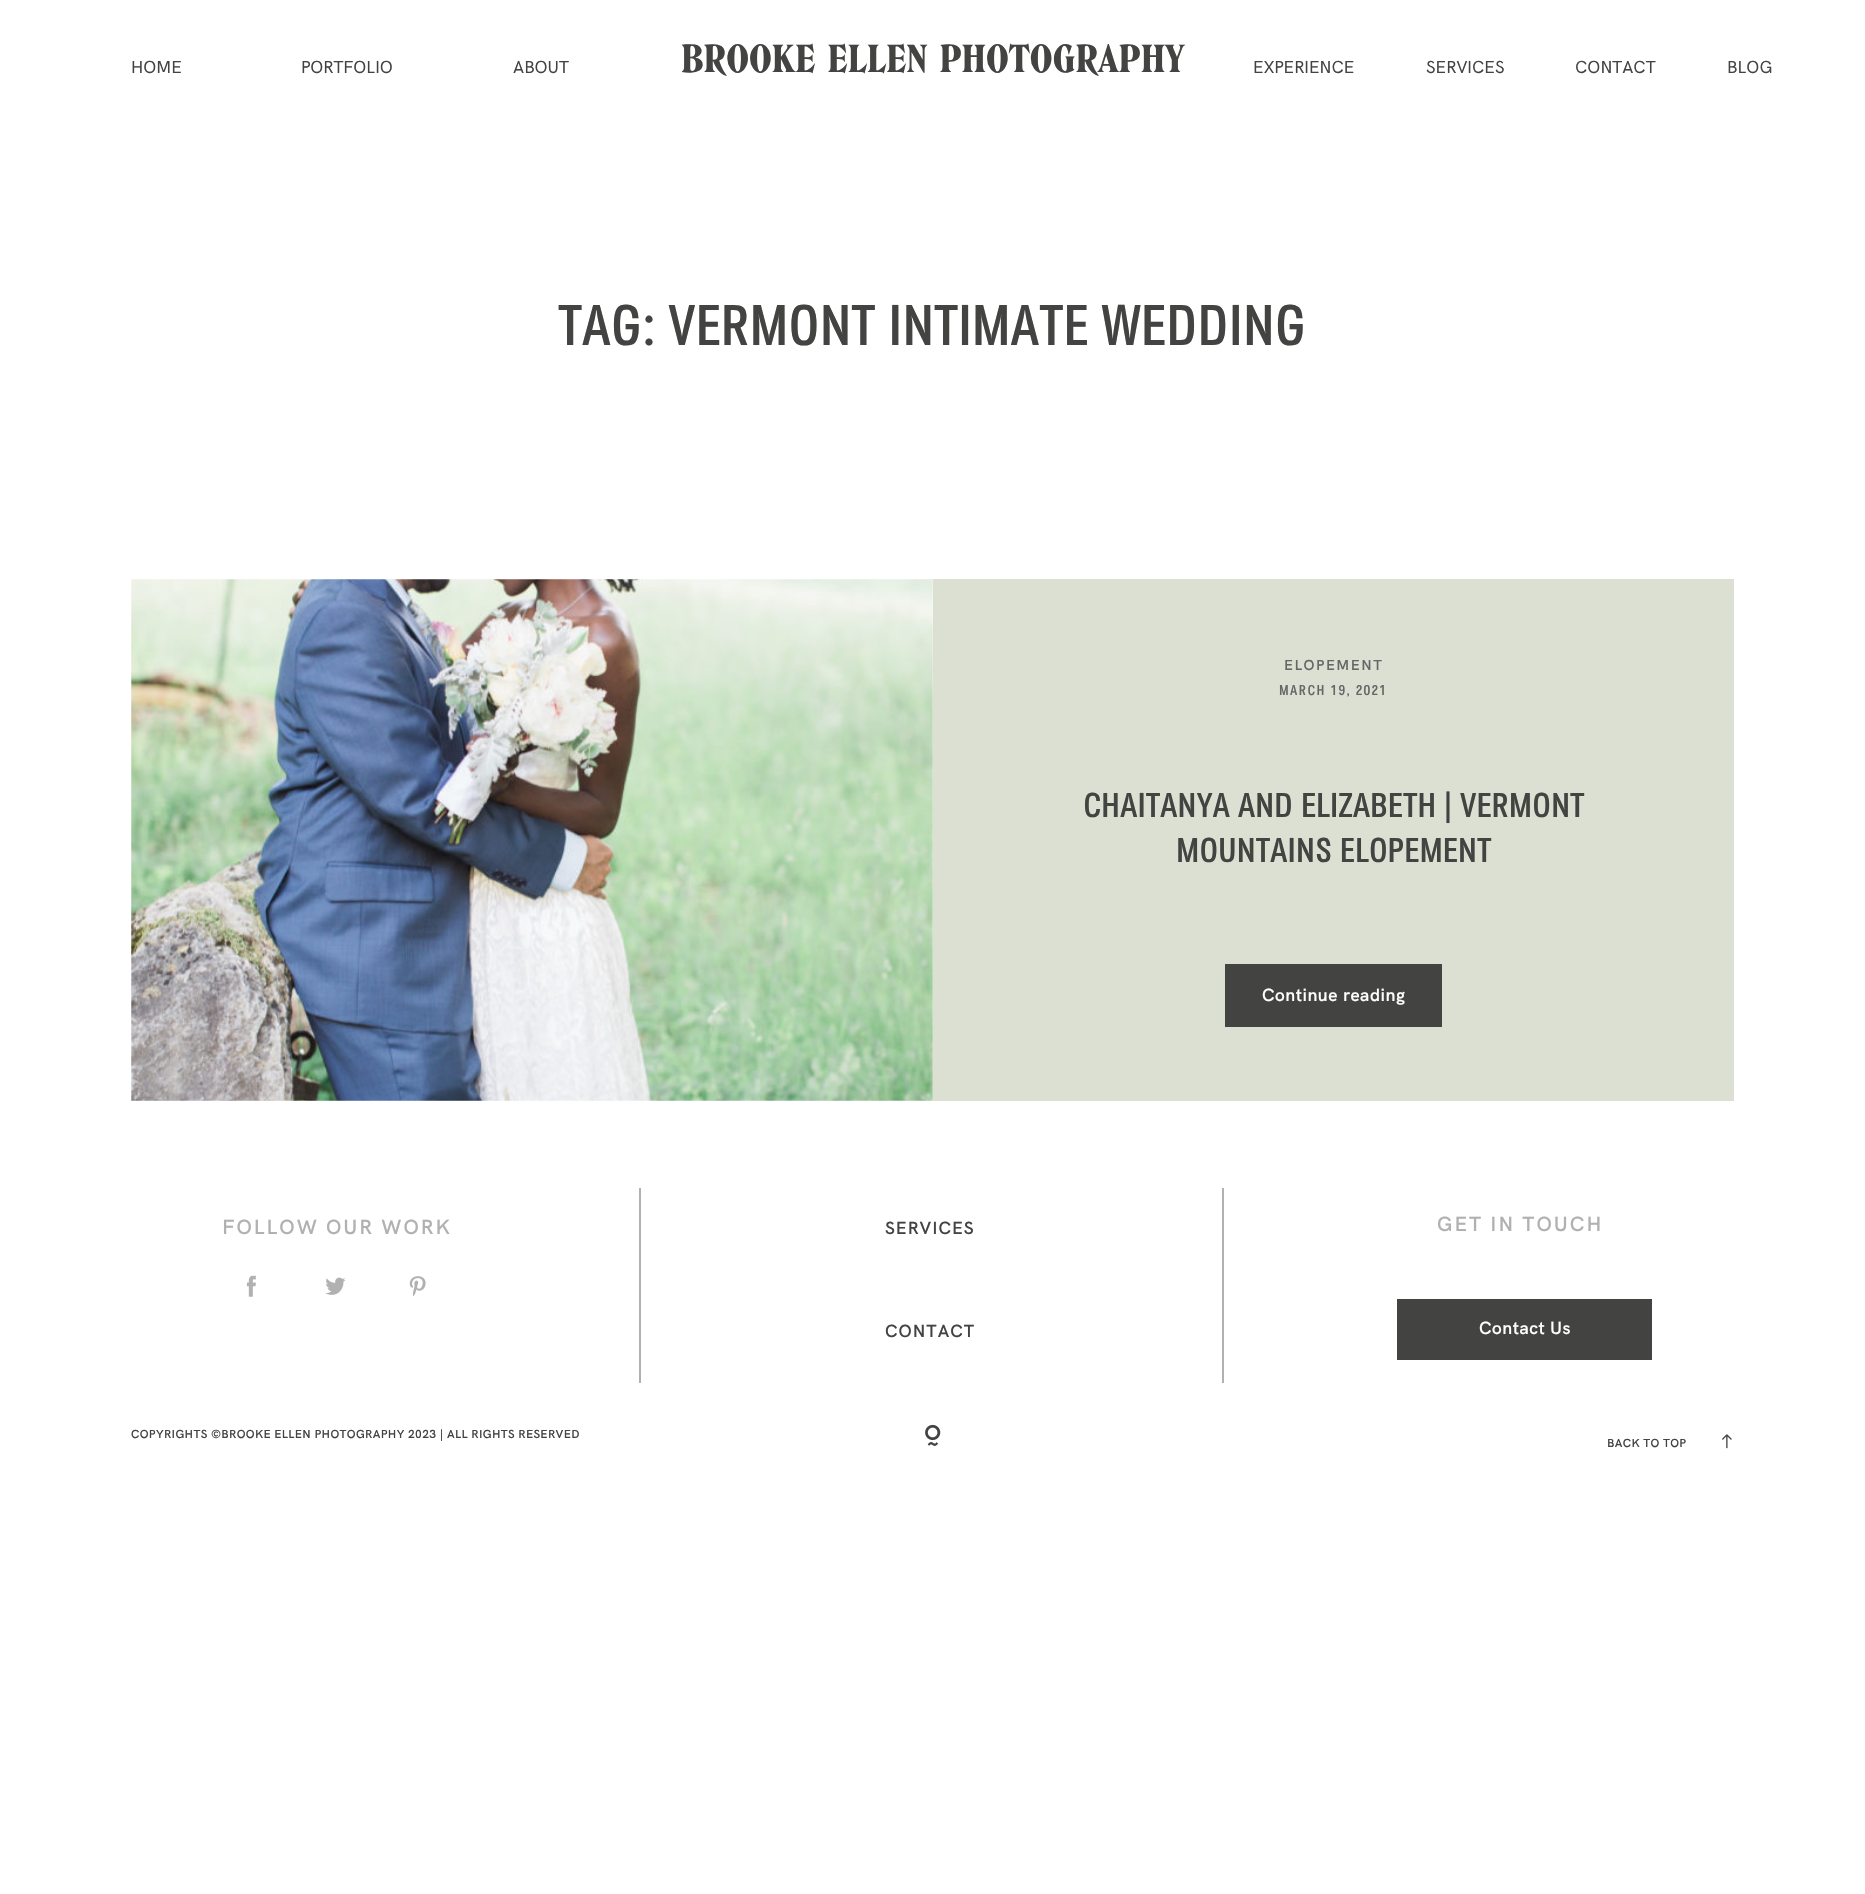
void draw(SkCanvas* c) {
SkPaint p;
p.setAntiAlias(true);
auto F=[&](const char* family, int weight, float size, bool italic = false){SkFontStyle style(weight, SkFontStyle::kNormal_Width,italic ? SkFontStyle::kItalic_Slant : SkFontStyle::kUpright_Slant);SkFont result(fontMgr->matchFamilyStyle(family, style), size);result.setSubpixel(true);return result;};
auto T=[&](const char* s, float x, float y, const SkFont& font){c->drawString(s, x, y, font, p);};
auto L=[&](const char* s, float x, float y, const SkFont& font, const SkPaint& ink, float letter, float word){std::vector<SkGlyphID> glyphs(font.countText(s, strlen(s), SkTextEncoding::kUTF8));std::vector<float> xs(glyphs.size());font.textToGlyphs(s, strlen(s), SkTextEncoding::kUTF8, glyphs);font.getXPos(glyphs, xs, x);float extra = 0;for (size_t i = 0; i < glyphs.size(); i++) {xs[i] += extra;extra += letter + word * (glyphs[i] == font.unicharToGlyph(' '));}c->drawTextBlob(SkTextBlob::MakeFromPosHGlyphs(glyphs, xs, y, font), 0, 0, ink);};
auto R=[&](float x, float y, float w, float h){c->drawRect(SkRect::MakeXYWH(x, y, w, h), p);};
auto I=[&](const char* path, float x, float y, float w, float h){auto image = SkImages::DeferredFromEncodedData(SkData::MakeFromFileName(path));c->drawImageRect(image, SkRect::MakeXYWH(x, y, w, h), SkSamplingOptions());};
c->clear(0xffffffff);
auto f1 = F("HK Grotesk",400,17.5);
p.setColor(0xff434442);
T("HOME",131,73,f1);
T("PORTFOLIO",301,73,f1);
T("ABOUT",513,73,f1);
auto f2 = F("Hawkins",400,40.75);
T("BROOKE ELLEN PHOTOGRAPHY",681,72,f2);
T("EXPERIENCE",1253,73,f1);
T("SERVICES",1426,73,f1);
T("CONTACT",1575,73,f1);
T("BLOG",1727,73,f1);
auto f3 = F("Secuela",500,58.25);
T("TAG: VERMONT INTIMATE WEDDING",558,345,f3);
I("1.png",131,579,802,522);
p.setColor(0xffdce0d2);
R(933,579,801,522);
auto f4 = F("HK Grotesk",600,14.5);
p.setColor(0xff666666);
L("ELOPEMENT",1284,670,f4,p,1.5,0);
auto f5 = F("Secuela",500,14.5);
L("MARCH 19, 2021",1279,695,f5,p,1.5,0);
auto f6 = F("Secuela",500,35);
p.setColor(0xff434442);
T("CHAITANYA AND ELIZABETH | VERMONT",1083,817,f6);
T("MOUNTAINS ELOPEMENT",1176,862,f6);
R(1225,964,217,63);
auto f7 = F("HK Grotesk",600,17.5);
p.setColor(0xffffffff);
L("Continue reading",1262,1001,f7,p,.5,0);
auto f8 = F("HK Grotesk",600,20.4);
p.setColor(0xffb1b1b1);
L("FOLLOW OUR WORK",222,1234,f8,p,2,0);
R(639,1188,2,195);
p.setColor(0xff434442);
L("SERVICES",885,1234,f7,p,1,0);
L("CONTACT",885,1337,f7,p,1,0);
p.setColor(0xffb1b1b1);
R(1222,1188,2,195);
L("GET IN TOUCH",1437,1231,f8,p,2,0);
I("2.png",246,1275,10,22);
I("3.png",325,1277,21,18);
I("4.png",409,1276,17,21);
p.setColor(0xff434442);
R(1397,1299,255,61);
p.setColor(0xffffffff);
L("Contact Us",1479,1334,f7,p,.5,0);
auto f9 = F("HK Grotesk",600,11.65);
p.setColor(0xff434442);
L("COPYRIGHTS ©BROOKE ELLEN PHOTOGRAPHY 2023 | ALL RIGHTS RESERVED",131,1438,f9,p,.35,0);
I("5.png",925,1424,16,22);
L("BACK TO TOP",1607,1447,f9,p,.35,0);
I("6.png",1722,1434,10,15);
}
